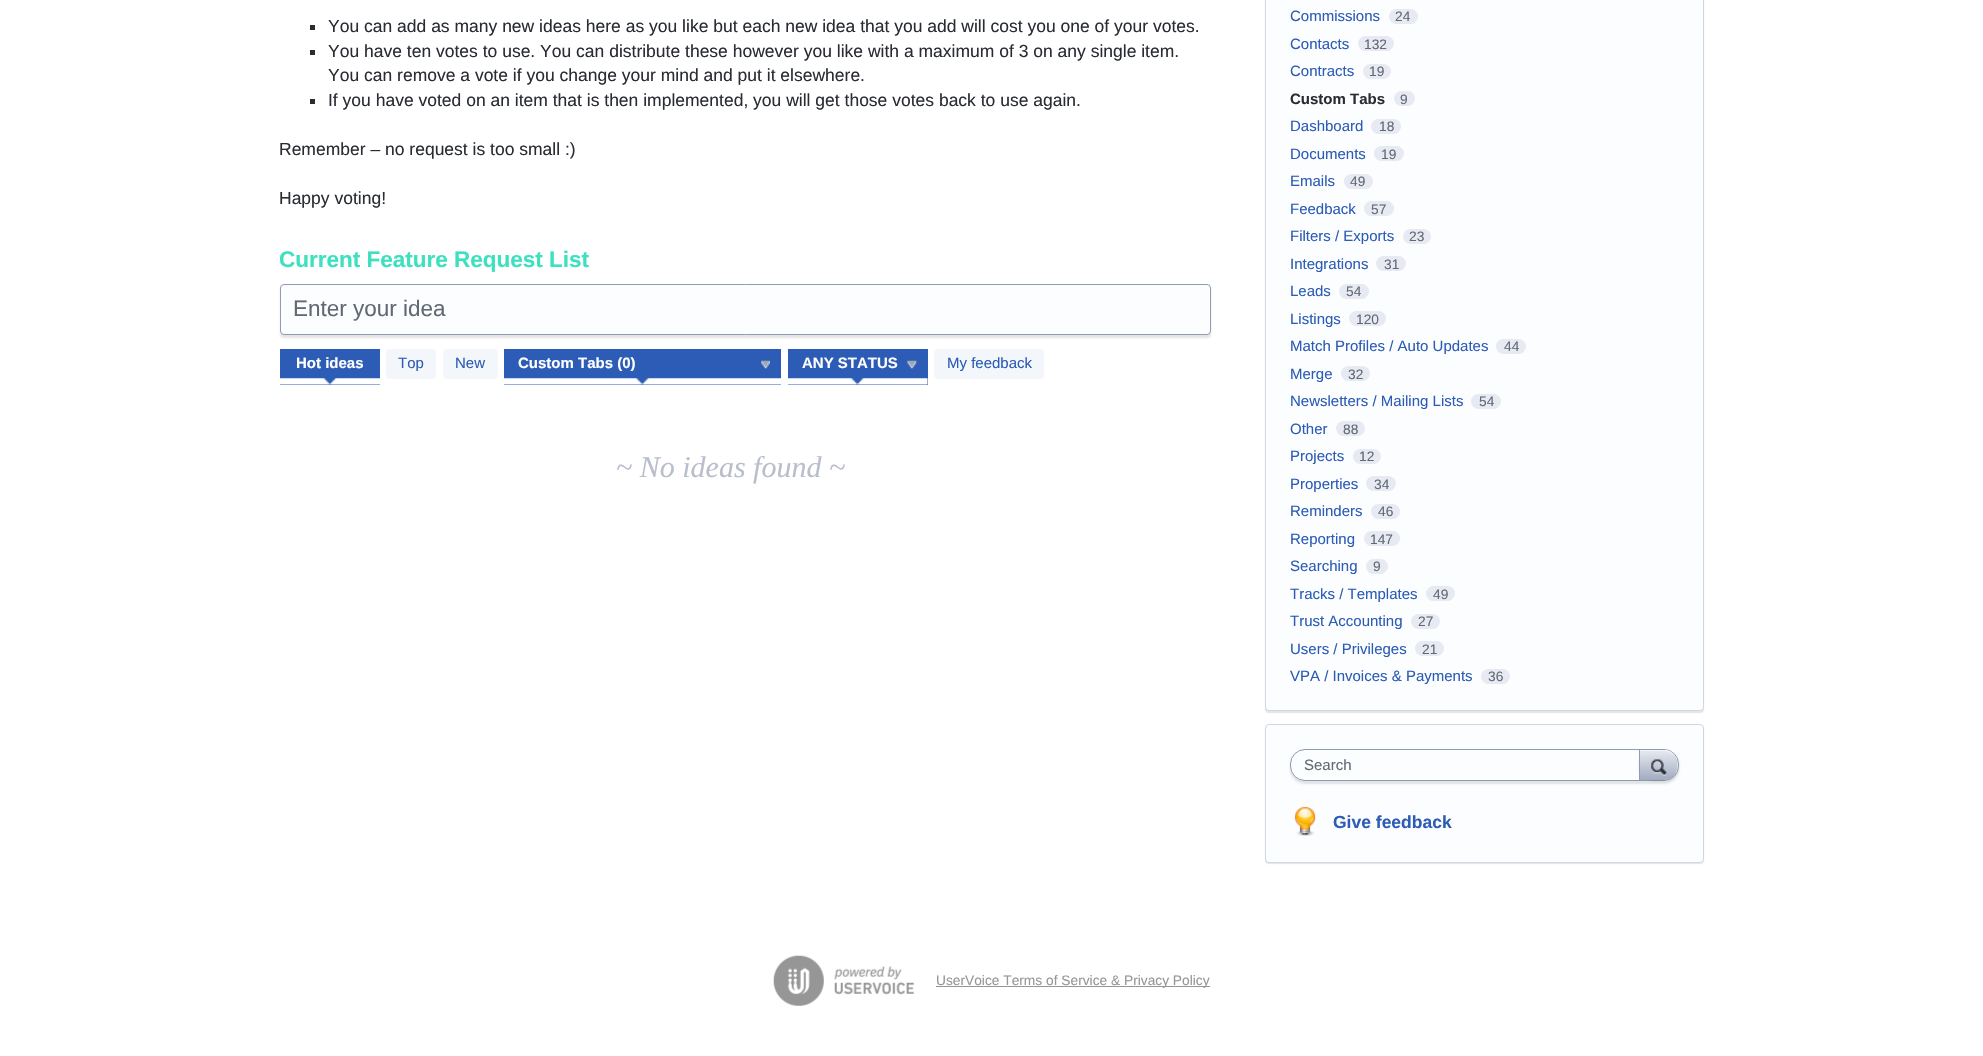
void draw(SkCanvas* c) {
SkPaint p;
p.setAntiAlias(true);
auto F=[&](const char* family, int weight, float size, bool italic = false){SkFontStyle style(weight, SkFontStyle::kNormal_Width,italic ? SkFontStyle::kItalic_Slant : SkFontStyle::kUpright_Slant);SkFont result(fontMgr->matchFamilyStyle(family, style), size);result.setSubpixel(true);return result;};
auto T=[&](const char* s, float x, float y, const SkFont& font){c->drawString(s, x, y, font, p);};
auto R=[&](float x, float y, float w, float h){c->drawRect(SkRect::MakeXYWH(x, y, w, h), p);};
auto Q=[&](float x, float y, float w, float h, float radius){c->drawRoundRect(SkRect::MakeXYWH(x, y, w, h), radius, radius, p);};
auto I=[&](const char* path, float x, float y, float w, float h){auto image = SkImages::DeferredFromEncodedData(SkData::MakeFromFileName(path));c->drawImageRect(image, SkRect::MakeXYWH(x, y, w, h), SkSamplingOptions());};
auto P=[&](const char* data, bool evenOdd = false){SkPath result = *SkParsePath::FromSVGString(data);if (evenOdd) result.setFillType(SkPathFillType::kEvenOdd);return result;};
c->clear(0xffffffff);
p.setColor(0xff292c33);
R(310,25,5,5);
auto f1 = F("Liberation Sans",400,17.5);
T("You can add as many new ideas here as you like but each new idea that you add will cost you one of your votes.",328,32,f1);
R(310,50,5,5);
T("You have ten votes to use. You can distribute these however you like with a maximum of 3 on any single item.",328,57,f1);
T("You can remove a vote if you change your mind and put it elsewhere.",328,81,f1);
R(310,99,5,5);
T("If you have voted on an item that is then implemented, you will get those votes back to use again.",328,106,f1);
T("Remember – no request is too small :)",279,155,f1);
T("Happy voting!",279,204,f1);
auto f2 = F("Liberation Sans",700,22.5);
p.setColor(0xff3de0bf);
T("Current Feature Request List",279,267,f2);
p.setColor(0x1a000000);
p.setMaskFilter(SkMaskFilter::MakeBlur(kNormal_SkBlurStyle, 1));
c->drawRoundRect(SkRect::MakeXYWH(280,286,931,52),4,4,p);
p.setMaskFilter(nullptr);
p.setColor(0xfffcfdff);
c->drawRoundRect(SkRect::MakeXYWH(280.5,284.5,930,50),3.5,3.5,p);
p.setStroke(true);
p.setStrokeWidth(1);
p.setColor(0xff8f9bb3);
c->drawRoundRect(SkRect::MakeXYWH(280.5,284.5,930,50),3.5,3.5,p);
auto f3 = F("Liberation Sans",400,22.5);
p.setStroke(false);
p.setColor(0xff616973);
T("Enter your idea",293,316,f3);
p.setColor(0xff2c5cb5);
R(280,349,100,36);
I("1.png",280,378,100,7);
auto f4 = F("Liberation Sans",700,15);
p.setColor(0xffffffff);
T("Hot ideas",296,368,f4);
p.setColor(0xfff3f6fa);
Q(386,349,50,30,4);
auto f5 = F("Liberation Sans",400,15);
p.setColor(0xff2c5cb5);
T("Top",398,368,f5);
p.setColor(0xfff3f6fa);
Q(443,349,55,30,4);
p.setColor(0xff2c5cb5);
T("New",455,368,f5);
R(504,349,277,36);
I("2.png",504,378,277,7);
I("3.png",761,360,9,9);
p.setColor(0xffffffff);
T("Custom Tabs (0)",518,368,f4);
p.setColor(0xff2c5cb5);
R(788,349,140,36);
I("4.png",788,378,140,7);
I("5.png",907,360,10,9);
p.setColor(0xffffffff);
T("ANY STATUS",802,368,f4);
p.setColor(0xfff3f6fa);
Q(934,349,110,30,4);
p.setColor(0xff2c5cb5);
T("My feedback",947,368,f5);
auto f6 = F("Liberation Serif",400,30,true);
p.setColor(0xffb8becc);
T("~ No ideas found ~",616,477,f6);
p.setColor(0x1a000000);
p.setMaskFilter(SkMaskFilter::MakeBlur(kNormal_SkBlurStyle, .5));
c->drawRoundRect(SkRect::MakeXYWH(1265,-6,439,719),4,4,p);
p.setMaskFilter(nullptr);
p.setColor(0xfffcfdff);
c->drawRoundRect(SkRect::MakeXYWH(1265.5,-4.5,438,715),3.5,3.5,p);
p.setStroke(true);
p.setColor(0xffcfd7e6);
c->drawRoundRect(SkRect::MakeXYWH(1265.5,-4.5,438,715),3.5,3.5,p);
p.setStroke(false);
p.setColor(0xff2c5cb5);
T("Commissions",1290,21,f5);
p.setColor(0xffe7eaf2);
Q(1389,9,29,15,7.5);
auto f7 = F("Liberation Sans",400,13.75);
p.setColor(0xff616973);
T("24",1395,21,f7);
p.setColor(0xff2c5cb5);
T("Contacts",1290,49,f5);
p.setColor(0xffe7eaf2);
Q(1358,36,36,15,7.5);
p.setColor(0xff616973);
T("132",1364,49,f7);
p.setColor(0xff2c5cb5);
T("Contracts",1290,76,f5);
p.setColor(0xffe7eaf2);
Q(1363,64,28,15,7.5);
p.setColor(0xff616973);
T("19",1369,76,f7);
p.setColor(0xff292c33);
T("Custom Tabs",1290,104,f4);
p.setColor(0xffe7eaf2);
Q(1394,91,21,15,7.5);
p.setColor(0xff616973);
T("9",1400,104,f7);
p.setColor(0xff2c5cb5);
T("Dashboard",1290,131,f5);
p.setColor(0xffe7eaf2);
Q(1371,119,30,15,7.5);
p.setColor(0xff616973);
T("18",1379,131,f7);
p.setColor(0xff2c5cb5);
T("Documents",1290,159,f5);
p.setColor(0xffe7eaf2);
Q(1374,146,30,15,7.5);
p.setColor(0xff616973);
T("19",1381,159,f7);
p.setColor(0xff2c5cb5);
T("Emails",1290,186,f5);
p.setColor(0xffe7eaf2);
Q(1344,174,29,15,7.5);
p.setColor(0xff616973);
T("49",1350,186,f7);
p.setColor(0xff2c5cb5);
T("Feedback",1290,214,f5);
p.setColor(0xffe7eaf2);
Q(1364,201,30,15,7.5);
p.setColor(0xff616973);
T("57",1371,214,f7);
p.setColor(0xff2c5cb5);
T("Filters / Exports",1290,241,f5);
p.setColor(0xffe7eaf2);
Q(1403,229,28,15,7.5);
p.setColor(0xff616973);
T("23",1409,241,f7);
p.setColor(0xff2c5cb5);
T("Integrations",1290,269,f5);
p.setColor(0xffe7eaf2);
Q(1376,256,30,15,7.5);
p.setColor(0xff616973);
T("31",1384,269,f7);
p.setColor(0xff2c5cb5);
T("Leads",1290,296,f5);
p.setColor(0xffe7eaf2);
Q(1339,284,30,15,7.5);
p.setColor(0xff616973);
T("54",1346,296,f7);
p.setColor(0xff2c5cb5);
T("Listings",1290,324,f5);
p.setColor(0xffe7eaf2);
Q(1349,311,37,15,7.5);
p.setColor(0xff616973);
T("120",1356,324,f7);
p.setColor(0xff2c5cb5);
T("Match Profiles / Auto Updates",1290,351,f5);
p.setColor(0xffe7eaf2);
Q(1496,339,30,15,7.5);
p.setColor(0xff616973);
T("44",1504,351,f7);
p.setColor(0xff2c5cb5);
T("Merge",1290,379,f5);
p.setColor(0xffe7eaf2);
Q(1341,366,29,15,7.5);
p.setColor(0xff616973);
T("32",1348,379,f7);
p.setColor(0xff2c5cb5);
T("Newsletters / Mailing Lists",1290,406,f5);
p.setColor(0xffe7eaf2);
Q(1471,394,30,15,7.5);
p.setColor(0xff616973);
T("54",1479,406,f7);
p.setColor(0xff2c5cb5);
T("Other",1290,434,f5);
p.setColor(0xffe7eaf2);
Q(1336,421,29,15,7.5);
p.setColor(0xff616973);
T("88",1343,434,f7);
p.setColor(0xff2c5cb5);
T("Projects",1290,461,f5);
p.setColor(0xffe7eaf2);
Q(1353,449,28,15,7.5);
p.setColor(0xff616973);
T("12",1359,461,f7);
p.setColor(0xff2c5cb5);
T("Properties",1290,489,f5);
p.setColor(0xffe7eaf2);
Q(1366,476,30,15,7.5);
p.setColor(0xff616973);
T("34",1374,489,f7);
p.setColor(0xff2c5cb5);
T("Reminders",1290,516,f5);
p.setColor(0xffe7eaf2);
Q(1371,504,29,15,7.5);
p.setColor(0xff616973);
T("46",1378,516,f7);
p.setColor(0xff2c5cb5);
T("Reporting",1290,544,f5);
p.setColor(0xffe7eaf2);
Q(1364,531,36,15,7.5);
p.setColor(0xff616973);
T("147",1370,544,f7);
p.setColor(0xff2c5cb5);
T("Searching",1290,571,f5);
p.setColor(0xffe7eaf2);
Q(1366,559,22,15,7.5);
p.setColor(0xff616973);
T("9",1373,571,f7);
p.setColor(0xff2c5cb5);
T("Tracks / Templates",1290,599,f5);
p.setColor(0xffe7eaf2);
Q(1426,586,29,15,7.5);
p.setColor(0xff616973);
T("49",1433,599,f7);
p.setColor(0xff2c5cb5);
T("Trust Accounting",1290,626,f5);
p.setColor(0xffe7eaf2);
Q(1411,614,29,15,7.5);
p.setColor(0xff616973);
T("27",1418,626,f7);
p.setColor(0xff2c5cb5);
T("Users / Privileges",1290,654,f5);
p.setColor(0xffe7eaf2);
Q(1415,641,29,15,7.5);
p.setColor(0xff616973);
T("21",1422,654,f7);
p.setColor(0xff2c5cb5);
T("VPA / Invoices & Payments",1290,681,f5);
p.setColor(0xffe7eaf2);
Q(1481,669,29,15,7.5);
p.setColor(0xff616973);
T("36",1488,681,f7);
p.setColor(0x1a000000);
p.setMaskFilter(SkMaskFilter::MakeBlur(kNormal_SkBlurStyle, .5));
c->drawRoundRect(SkRect::MakeXYWH(1265,725,439,139),4,4,p);
p.setMaskFilter(nullptr);
p.setColor(0xfffcfdff);
c->drawRoundRect(SkRect::MakeXYWH(1265.5,724.5,438,138),3.5,3.5,p);
p.setStroke(true);
p.setColor(0xffcfd7e6);
c->drawRoundRect(SkRect::MakeXYWH(1265.5,724.5,438,138),3.5,3.5,p);
p.setStroke(false);
p.setColor(0x1a000000);
p.setMaskFilter(SkMaskFilter::MakeBlur(kNormal_SkBlurStyle, 1));
c->drawRoundRect(SkRect::MakeXYWH(1290,751,389,33),15,15,p);
p.setMaskFilter(nullptr);
p.setColor(0xfffcfdff);
c->drawRoundRect(SkRect::MakeXYWH(1290.5,749.5,388,31),14.5,14.5,p);
p.setStroke(true);
p.setColor(0xff8f9bb3);
c->drawRoundRect(SkRect::MakeXYWH(1290.5,749.5,388,31),14.5,14.5,p);
p.setStroke(false);
p.setColor(0xff616973);
T("Search",1304,770,f5);
c->save();
c->clipPath(P("M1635 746h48v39h-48zm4 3h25c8.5 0 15 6.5 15 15v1c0 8.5-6.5 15-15 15h-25z",true),true);
p.setColor(0x1a000000);
p.setMaskFilter(SkMaskFilter::MakeBlur(kNormal_SkBlurStyle, 1));
c->drawRoundRect(SkRect::MakeXYWH(1639,750,40,31),15,15,p);
p.setMaskFilter(nullptr);
c->restore();
{
const SkColor colors[] = {0xffe6eaf2,0xffa2acbf};
const float stops[] = {0,1};
const SkPoint ends[] = {{1640,750}, {1640,780}};
p.setShader(SkGradientShader::MakeLinear(ends, colors, stops, 2, SkTileMode::kClamp));
p.setAlpha(255);
}
c->drawPath(P("M1640 750h24c7.5 0 13.5 6 13.5 14v1c0 8.5-6 15-13.5 15h-24z"),p);
p.setShader(nullptr);
p.setColor(0x80ffffff);
c->drawPath(P("M1640 750v1h24c5.5 0 10.5 3.5 13 8.5c-2-5.5-7-9.5-13-9.5z"),p);
p.setColor(0xff8f9bb3);
c->drawPath(P("M1678 765c0 8-5.5 15-14 15c7 0 14-7 14-15zm-4.5-11c2.5 2.5 4.5 6 4.5 10c0-4-1.5-7.5-4.5-10z",true),p);
R(1639,750,1,30);
I("6.png",1651,759,16,17);
I("7.png",1294,806,22,30);
auto f8 = F("Liberation Sans",700,17.5);
p.setColor(0xff2c5cb5);
T("Give feedback",1333,828,f8);
I("8.png",773,955,141,51);
p.setColor(0xff969696);
R(936,986,274,1);
T("UserVoice Terms of Service & Privacy Policy",936,985,f7);
}
